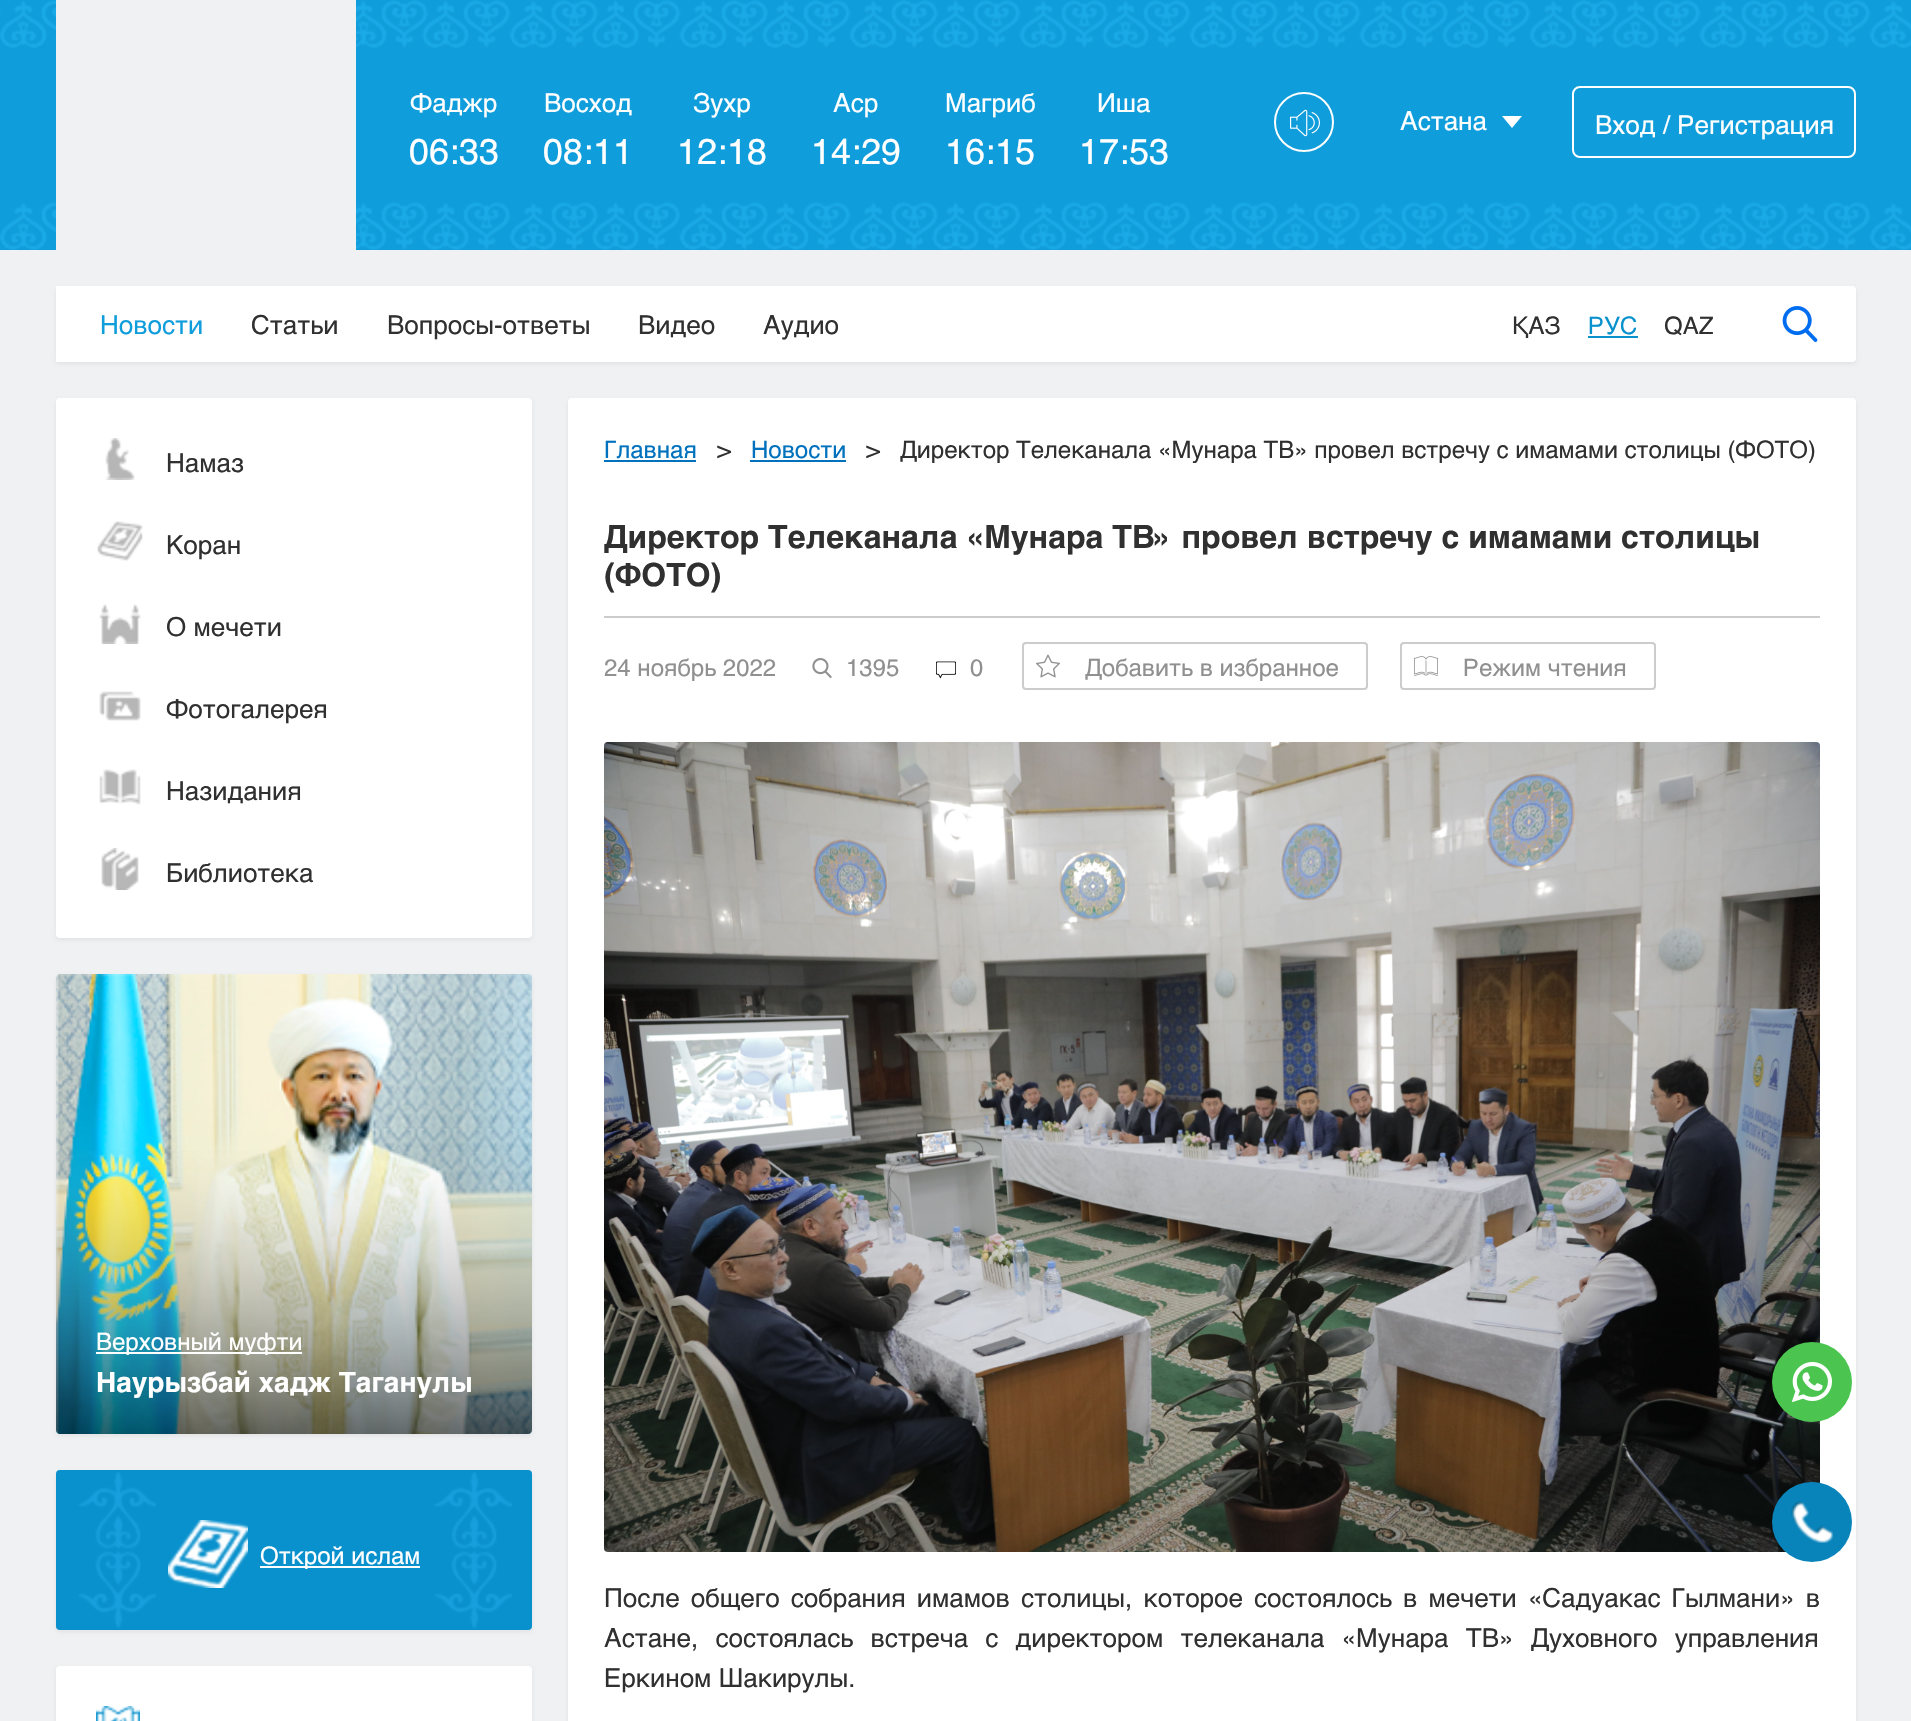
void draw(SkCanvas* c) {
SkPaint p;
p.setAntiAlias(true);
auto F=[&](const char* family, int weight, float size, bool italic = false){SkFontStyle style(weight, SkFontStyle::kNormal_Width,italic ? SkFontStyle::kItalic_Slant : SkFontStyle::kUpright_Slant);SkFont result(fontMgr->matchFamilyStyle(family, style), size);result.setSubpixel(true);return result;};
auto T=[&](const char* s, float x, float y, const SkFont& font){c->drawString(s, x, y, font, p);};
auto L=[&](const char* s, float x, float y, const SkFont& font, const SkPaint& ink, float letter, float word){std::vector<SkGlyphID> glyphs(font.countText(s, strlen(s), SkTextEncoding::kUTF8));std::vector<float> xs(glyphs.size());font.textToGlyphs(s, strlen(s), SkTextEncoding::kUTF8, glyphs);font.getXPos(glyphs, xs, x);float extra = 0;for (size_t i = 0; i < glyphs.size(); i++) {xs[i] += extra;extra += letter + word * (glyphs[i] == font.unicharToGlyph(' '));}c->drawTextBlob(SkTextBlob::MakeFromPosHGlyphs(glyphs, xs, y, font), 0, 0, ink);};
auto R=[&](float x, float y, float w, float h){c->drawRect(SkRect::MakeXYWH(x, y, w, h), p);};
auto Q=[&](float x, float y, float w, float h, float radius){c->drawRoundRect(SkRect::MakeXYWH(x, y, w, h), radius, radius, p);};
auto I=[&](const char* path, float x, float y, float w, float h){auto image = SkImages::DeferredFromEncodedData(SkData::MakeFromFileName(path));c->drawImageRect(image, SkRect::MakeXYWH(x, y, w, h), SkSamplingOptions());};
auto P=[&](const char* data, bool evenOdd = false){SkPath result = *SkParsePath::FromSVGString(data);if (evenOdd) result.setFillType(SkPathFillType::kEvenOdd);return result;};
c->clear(0xfff0f1f3);
p.setColor(0xff0f9ddb);
R(0,0,1911,250);
I("1.png",0,0,1911,48);
I("1.png",0,202,1911,48);
p.setColor(0xfff0f1f3);
R(56,0,300,250);
auto f1 = F("Helvetica",400,26);
p.setColor(0xffffffff);
T("Фаджр",410,112,f1);
auto f2 = F("Helvetica",400,36);
T("06:33",409,164,f2);
T("Восход",544,112,f1);
T("08:11",543,164,f2);
T("Зухр",693,112,f1);
T("12:18",677,164,f2);
T("Аср",833,112,f1);
T("14:29",811,164,f2);
T("Магриб",945,112,f1);
T("16:15",945,164,f2);
T("Иша",1097,112,f1);
T("17:53",1079,164,f2);
p.setStroke(true);
p.setStrokeWidth(2);
c->drawCircle(1304,122,29,p);
I("2.png",1290,109,30,28);
p.setStroke(false);
T("Астана",1400,130,f1);
c->drawPath(P("M1502 116h20l-10 12z"),p);
p.setStroke(true);
c->drawRoundRect(SkRect::MakeXYWH(1573,87,282,70),7,7,p);
p.setStroke(false);
T("Вход / Регистрация",1595,134,f1);
p.setColor(0x0f000000);
p.setMaskFilter(SkMaskFilter::MakeBlur(kNormal_SkBlurStyle, 2));
c->drawRoundRect(SkRect::MakeXYWH(56,288,1800,76),4,4,p);
p.setMaskFilter(nullptr);
p.setColor(0xffffffff);
Q(56,286,1800,76,4);
R(56,286,3,76);
p.setColor(0xff0f9ddb);
T("Новости",100,334,f1);
p.setColor(0xff303030);
T("Статьи",251,334,f1);
T("Вопросы-ответы",387,334,f1);
T("Видео",638,334,f1);
T("Аудио",763,334,f1);
auto f3 = F("Helvetica",400,24);
T("ҚАЗ",1512,334,f3);
p.setColor(0xff0991cd);
T("РУС",1588,334,f3);
R(1588,336,50,2);
p.setColor(0xff303030);
T("QAZ",1664,334,f3);
I("3.png",1782,306,36,36);
p.setColor(0x0f000000);
p.setMaskFilter(SkMaskFilter::MakeBlur(kNormal_SkBlurStyle, 2));
c->drawRoundRect(SkRect::MakeXYWH(56,400,476,540),4,4,p);
p.setMaskFilter(nullptr);
p.setColor(0xffffffff);
Q(56,398,476,540,4);
I("4.png",105,438,30,42);
p.setColor(0xff303030);
T("Намаз",166,472,f1);
I("5.png",97,521,46,40);
T("Коран",166,554,f1);
I("6.png",99,604,42,40);
T("О мечети",166,636,f1);
I("7.png",99,691,42,30);
T("Фотогалерея",166,718,f1);
I("8.png",99,769,42,36);
T("Назидания",166,800,f1);
I("9.png",101,848,38,42);
T("Библиотека",166,882,f1);
p.setColor(0x0f000000);
p.setMaskFilter(SkMaskFilter::MakeBlur(kNormal_SkBlurStyle, 2));
c->drawRoundRect(SkRect::MakeXYWH(56,976,476,460),4,4,p);
p.setMaskFilter(nullptr);
I("10.png",56,974,476,460);
{
const SkColor colors[] = {0x05b9b7b7,0x94000000};
const float stops[] = {0,1};
const SkPoint ends[] = {{294,1150}, {294,1434}};
p.setShader(SkGradientShader::MakeLinear(ends, colors, stops, 2, SkTileMode::kClamp));
p.setAlpha(255);
}
c->drawPath(P("M56 1150h476v280c0 2-2 4-4 4h-468c-2 0-4-2-4-4z"),p);
p.setShader(nullptr);
p.setColor(0xffffffff);
R(96,1352,206,2);
T("Верховный муфти",96,1350,f3);
auto f4 = F("Helvetica",700,28);
T("Наурызбай хадж Таганулы",96,1392,f4);
p.setColor(0x0f000000);
p.setMaskFilter(SkMaskFilter::MakeBlur(kNormal_SkBlurStyle, 2));
c->drawRoundRect(SkRect::MakeXYWH(56,1472,476,160),4,4,p);
p.setMaskFilter(nullptr);
p.setColor(0xff0991cd);
Q(56,1470,476,160,4);
I("11.png",78,1472,78,156);
I("12.png",168,1520,80,68);
p.setColor(0xffffffff);
R(260,1566,160,2);
T("Открой ислам",260,1564,f3);
I("11.png",434,1472,78,156);
p.setColor(0x0f000000);
p.setMaskFilter(SkMaskFilter::MakeBlur(kNormal_SkBlurStyle, 2));
c->drawRoundRect(SkRect::MakeXYWH(56,1668,476,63),4,4,p);
p.setMaskFilter(nullptr);
p.setColor(0xffffffff);
Q(56,1666,476,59,4);
I("13.png",96,1706,44,15);
p.setColor(0x0f000000);
p.setMaskFilter(SkMaskFilter::MakeBlur(kNormal_SkBlurStyle, 2));
c->drawRoundRect(SkRect::MakeXYWH(568,400,1288,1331),4,4,p);
p.setMaskFilter(nullptr);
p.setColor(0xffffffff);
Q(568,398,1288,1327,4);
p.setColor(0xff0071bd);
T("Главная",604,458,f3);
R(604,460,92,2);
p.setColor(0xff303030);
T(">",717,458,f3);
p.setColor(0xff0071bd);
T("Новости",751,458,f3);
R(750,460,96,2);
p.setColor(0xff303030);
T(">",866,458,f3);
T("Директор Телеканала «Мунара ТВ» провел встречу с имамами столицы (ФОТО)",900,458,f3);
auto f5 = F("Helvetica",700,32);
T("Директор Телеканала «Мунара ТВ» провел встречу с имамами столицы",604,548,f5);
T("(ФОТО)",604,586,f5);
p.setColor(0xffcccccc);
R(604,616,1216,2);
p.setColor(0xff909090);
T("24 ноябрь 2022",604,676,f3);
I("14.png",812,658,20,20);
T("1395",846,676,f3);
I("15.png",936,661,20,18);
T("0",970,676,f3);
p.setStroke(true);
p.setColor(0xffcccccc);
c->drawRoundRect(SkRect::MakeXYWH(1023,643,344,46),3,3,p);
I("16.png",1036,654,24,24);
p.setStroke(false);
p.setColor(0xff909090);
T("Добавить в избранное",1085,676,f3);
p.setStroke(true);
p.setColor(0xffcccccc);
c->drawRoundRect(SkRect::MakeXYWH(1401,643,254,46),3,3,p);
I("17.png",1414,656,24,20);
p.setStroke(false);
p.setColor(0xff909090);
T("Режим чтения",1463,676,f3);
I("18.png",604,742,1216,810);
p.setColor(0xff303030);
L("После общего собрания имамов столицы, которое состоялось в мечети «Садуакас Гылмани» в",604,1607,f1,p,0,3.9);
L("Астане, состоялась встреча с директором телеканала «Мунара ТВ» Духовного управления",604,1647,f1,p,0,10);
T("Еркином Шакирулы.",604,1687,f1);
p.setColor(0xff4bc450);
c->drawCircle(1812,1382,40,p);
I("19.png",1792,1362,40,40);
p.setColor(0xff0884bb);
c->drawCircle(1812,1522,40,p);
I("20.png",1791,1501,42,42);
}
